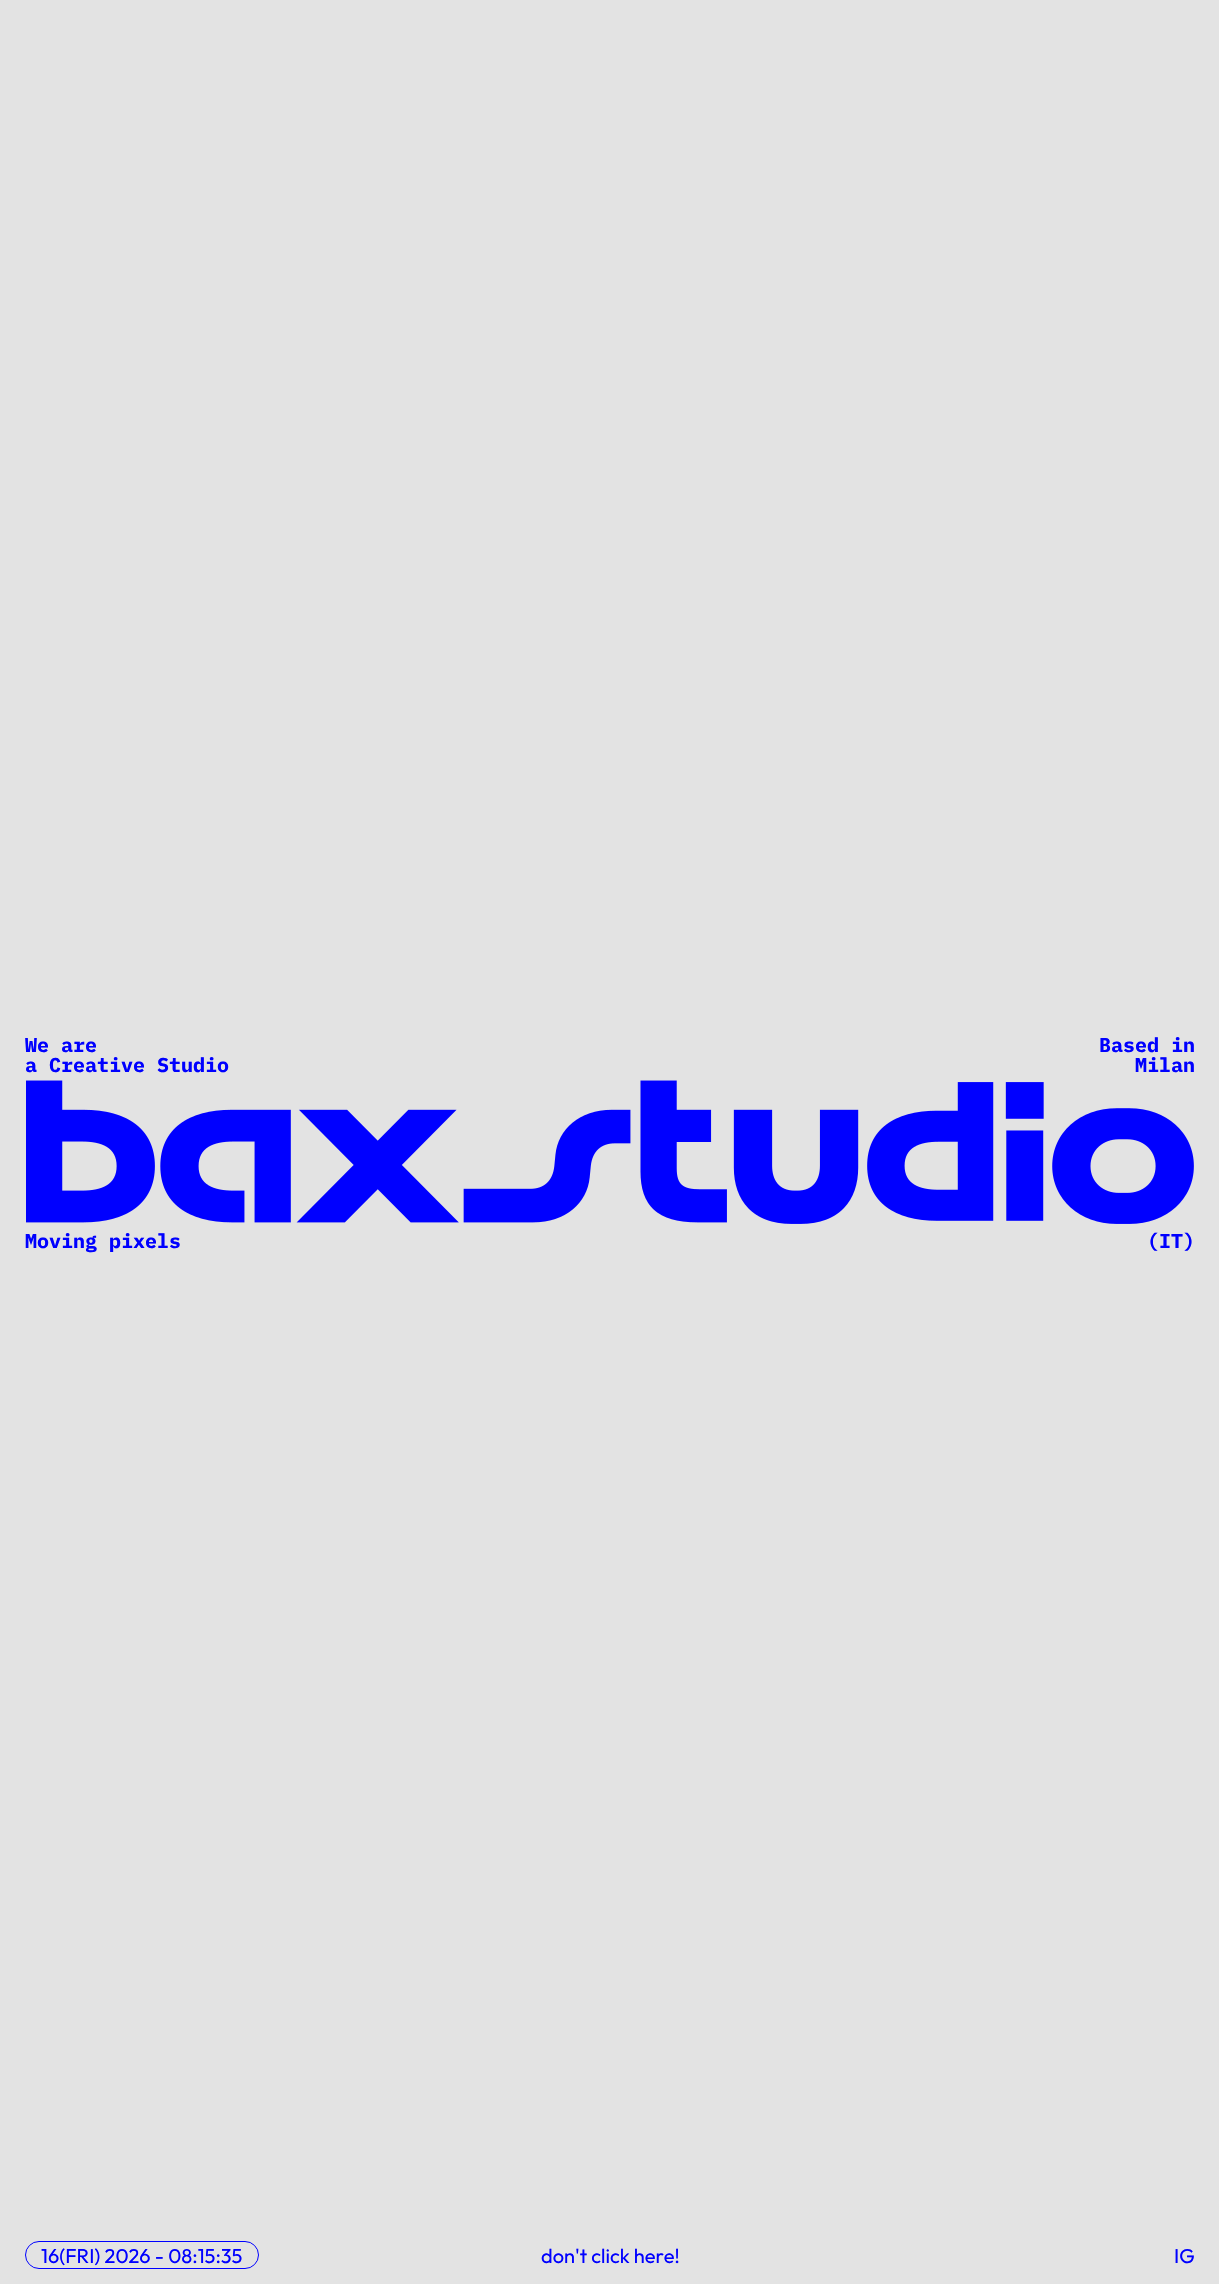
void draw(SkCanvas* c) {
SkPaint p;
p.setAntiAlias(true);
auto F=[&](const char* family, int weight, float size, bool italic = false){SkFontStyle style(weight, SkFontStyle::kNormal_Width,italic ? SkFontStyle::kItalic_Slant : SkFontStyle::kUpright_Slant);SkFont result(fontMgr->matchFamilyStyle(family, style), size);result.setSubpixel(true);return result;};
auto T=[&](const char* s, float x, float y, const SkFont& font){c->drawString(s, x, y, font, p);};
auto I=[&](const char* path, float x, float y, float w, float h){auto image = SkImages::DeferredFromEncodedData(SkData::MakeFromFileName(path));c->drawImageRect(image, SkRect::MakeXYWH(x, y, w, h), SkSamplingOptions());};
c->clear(0xffe3e3e3);
auto f1 = F("IBM Plex Mono",700,20);
p.setColor(0xff0000ff);
T("We are",25,1052,f1);
T("a Creative Studio",25,1072,f1);
T("Based in",1099,1052,f1);
T("Milan",1135,1072,f1);
I("1.png",26,1080,1168,144);
T("Moving pixels",25,1248,f1);
T("(IT)",1147,1248,f1);
p.setStroke(true);
p.setStrokeWidth(1);
c->drawRoundRect(SkRect::MakeXYWH(25.5,2241.5,233,27),13.5,13.5,p);
auto f2 = F("Outfit",400,20);
p.setStroke(false);
T("16(FRI) 2026 - 08:15:35",41,2263,f2);
T("don't click here!",541,2263,f2);
T("IG",1174,2263,f2);
}
